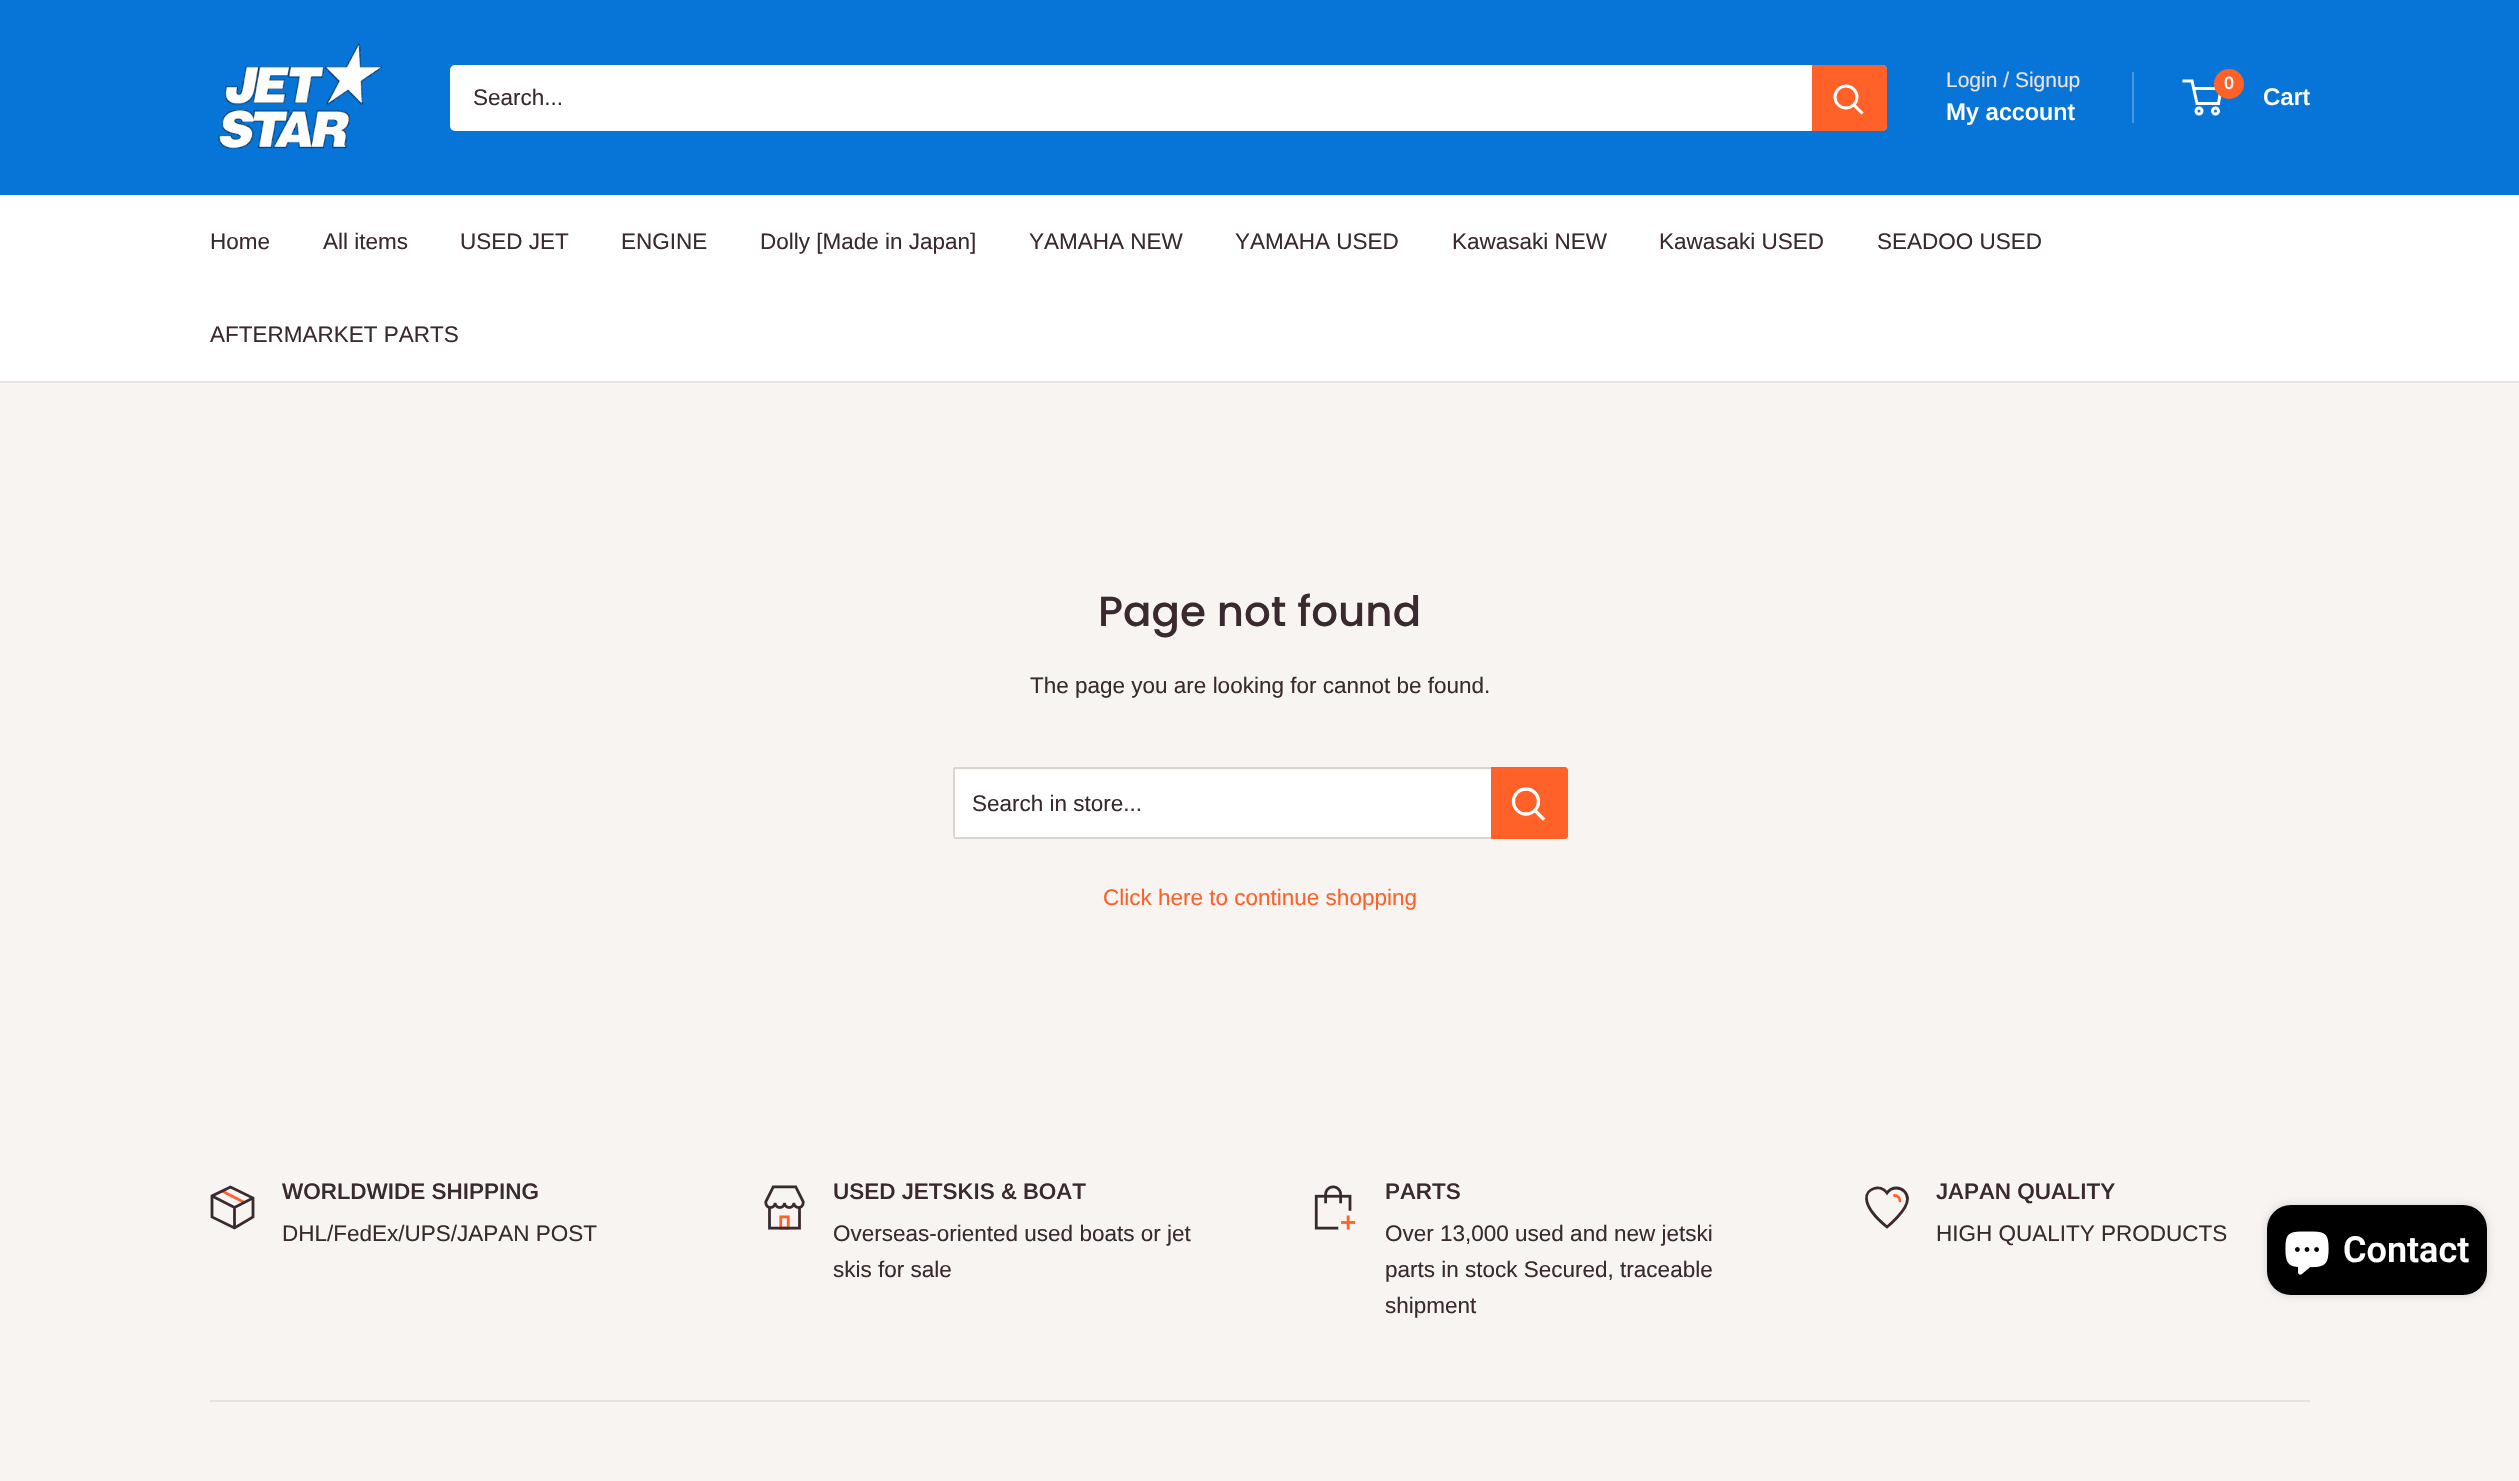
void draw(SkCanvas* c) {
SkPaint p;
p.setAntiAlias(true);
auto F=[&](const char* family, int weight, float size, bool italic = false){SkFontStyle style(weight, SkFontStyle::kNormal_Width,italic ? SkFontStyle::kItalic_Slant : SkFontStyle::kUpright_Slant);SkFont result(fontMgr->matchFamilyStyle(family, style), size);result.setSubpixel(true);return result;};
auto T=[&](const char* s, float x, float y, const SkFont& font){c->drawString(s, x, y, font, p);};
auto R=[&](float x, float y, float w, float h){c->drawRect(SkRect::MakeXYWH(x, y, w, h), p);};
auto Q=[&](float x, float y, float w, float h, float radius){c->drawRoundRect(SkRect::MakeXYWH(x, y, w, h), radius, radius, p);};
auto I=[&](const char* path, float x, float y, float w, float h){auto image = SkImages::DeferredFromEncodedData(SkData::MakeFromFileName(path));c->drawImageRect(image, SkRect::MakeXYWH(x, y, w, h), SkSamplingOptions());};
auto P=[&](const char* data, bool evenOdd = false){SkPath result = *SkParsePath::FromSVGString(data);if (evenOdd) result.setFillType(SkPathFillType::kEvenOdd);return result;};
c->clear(0xfff7f4f2);
p.setColor(0xff0774d7);
R(0,0,2519,195);
I("1.png",218,43,165,106);
p.setColor(0xffffffff);
Q(450,65,1437,66,5);
auto f1 = F("Arimo",400,22.5);
p.setColor(0xff3a2a2f);
T("Search...",473,105,f1);
p.setColor(0xffff6128);
c->drawPath(P("M1812 65h70c3 0 5 2 5 5v56c0 3-2 5-5 5h-70z"),p);
p.setStroke(true);
p.setStrokeWidth(3);
p.setStrokeCap(SkPaint::kSquare_Cap);
p.setColor(0xffffffff);
c->drawPath(P("M1861.5 112.5l-7.5-7.5"),p);
p.setStrokeCap(SkPaint::kButt_Cap);
c->drawCircle(1846,97,11,p);
auto f2 = F("Arimo",400,21);
p.setStroke(false);
p.setColor(0xffe9e2dd);
T("Login / Signup",1946,87,f2);
p.setColor(0xff4b95d9);
R(2132,72,2,51);
auto f3 = F("Arimo",600,24);
p.setColor(0xffffffff);
T("My account",1946,120,f3);
p.setStroke(true);
c->drawCircle(2199,111,3,p);
c->drawCircle(2215.5,111,3,p);
c->drawPath(P("M2193.5 88.5h27.5l-2.5 15h-21.5l-5-22.5h-9.5"),p);
p.setStroke(false);
p.setColor(0xffff6128);
c->drawCircle(2229,84,15,p);
auto f4 = F("Arimo",600,18);
p.setColor(0xffffffff);
T("0",2224,89,f4);
T("Cart",2263,105,f3);
R(0,195,2519,186);
p.setColor(0xffe7e2de);
R(0,381,2519,2);
p.setColor(0xff3a2a2f);
T("Home",210,249,f1);
T("All items",323,249,f1);
T("USED JET",460,249,f1);
T("ENGINE",621,249,f1);
T("Dolly [Made in Japan]",760,249,f1);
T("YAMAHA NEW",1029,249,f1);
T("YAMAHA USED",1235,249,f1);
T("Kawasaki NEW",1452,249,f1);
T("Kawasaki USED",1659,249,f1);
T("SEADOO USED",1877,249,f1);
T("AFTERMARKET PARTS",210,342,f1);
auto f5 = F("Poppins",500,42);
T("Page not found",1098,626,f5);
T("The page you are looking for cannot be found.",1030,693,f1);
p.setColor(0xffffffff);
c->drawPath(P("M956 767h535v72h-535c-1.5 0-3-1.5-3-3v-66c0-1.5 1.5-3 3-3z"),p);
p.setColor(0xfff9f8f7);
c->drawPath(P("M956 770h535v-2h-535c-2 0-2 2-2 3c0-1 1-1 2-1z"),p);
p.setColor(0xffdcd5cf);
R(954,767,537,2);
R(954,837,537,2);
R(953,768,2,69);
p.setColor(0xff3a2a2f);
T("Search in store...",972,811,f1);
p.setColor(0xffff6128);
c->drawPath(P("M1491 767h74c1.5 0 3 1.5 3 3v66c0 1.5-1.5 3-3 3h-74z"),p);
p.setStroke(true);
p.setStrokeWidth(3.3);
p.setStrokeCap(SkPaint::kSquare_Cap);
p.setColor(0xffffffff);
c->drawPath(P("M1543 818.5l-8-8"),p);
p.setStrokeCap(SkPaint::kButt_Cap);
c->drawCircle(1526,801.5,12.5,p);
p.setStroke(false);
p.setColor(0xffff6128);
T("Click here to continue shopping",1103,905,f1);
p.setStroke(true);
p.setStrokeWidth(2.8);
c->drawPath(P("M222 1191l22.5 11.5"),p);
p.setColor(0xff3a2a2f);
c->drawPath(P("M253 1198l-18.5 9.5l-22.5-11.5m22.5 11.5v20.5"),p);
p.setStrokeCap(SkPaint::kSquare_Cap);
c->drawPath(P("M253 1198v19l-18.5 11l-22.5-11v-21l18.5-9z"),p);
auto f6 = F("Arimo",600,22.5);
p.setStroke(false);
T("WORLDWIDE SHIPPING",282,1199,f6);
T("DHL/FedEx/UPS/JAPAN POST",282,1241,f1);
I("2.png",764,1185,41,45);
T("USED JETSKIS & BOAT",833,1199,f6);
T("Overseas-oriented used boats or jet",833,1241,f1);
T("skis for sale",833,1277,f1);
I("3.png",1314,1185,42,45);
T("PARTS",1385,1199,f6);
T("Over 13,000 used and new jetski",1385,1241,f1);
T("parts in stock Secured, traceable",1385,1277,f1);
T("shipment",1385,1313,f1);
p.setStroke(true);
c->drawPath(P("M1896.5 1188c-4 0-7.5 2-9.5 5c-6.5-9.5-21.5-4.5-20.5 6c1 11 12.5 21.5 20.5 28c0 0 20.5-16.5 20.5-28c0-6-5-11-11-11z"),p);
p.setStrokeCap(SkPaint::kRound_Cap);
p.setColor(0xffff6128);
c->drawPath(P("M1894.5 1195.5c3 0 5.5 2.5 5.5 5.5"),p);
p.setStroke(false);
p.setColor(0xff3a2a2f);
T("JAPAN QUALITY",1936,1199,f6);
T("HIGH QUALITY PRODUCTS",1936,1241,f1);
p.setColor(0x26000000);
p.setMaskFilter(SkMaskFilter::MakeBlur(kNormal_SkBlurStyle, 4));
c->drawRoundRect(SkRect::MakeXYWH(2267,1205,220,90),24,24,p);
p.setMaskFilter(nullptr);
p.setColor(0xff000000);
Q(2267,1205,220,90,24);
I("4.png",2285,1231,44,44);
auto f7 = F("Roboto",600,36);
p.setColor(0xffffffff);
T("Contact",2343,1262,f7);
p.setColor(0xffe7e2de);
R(210,1400,2100,2);
}
